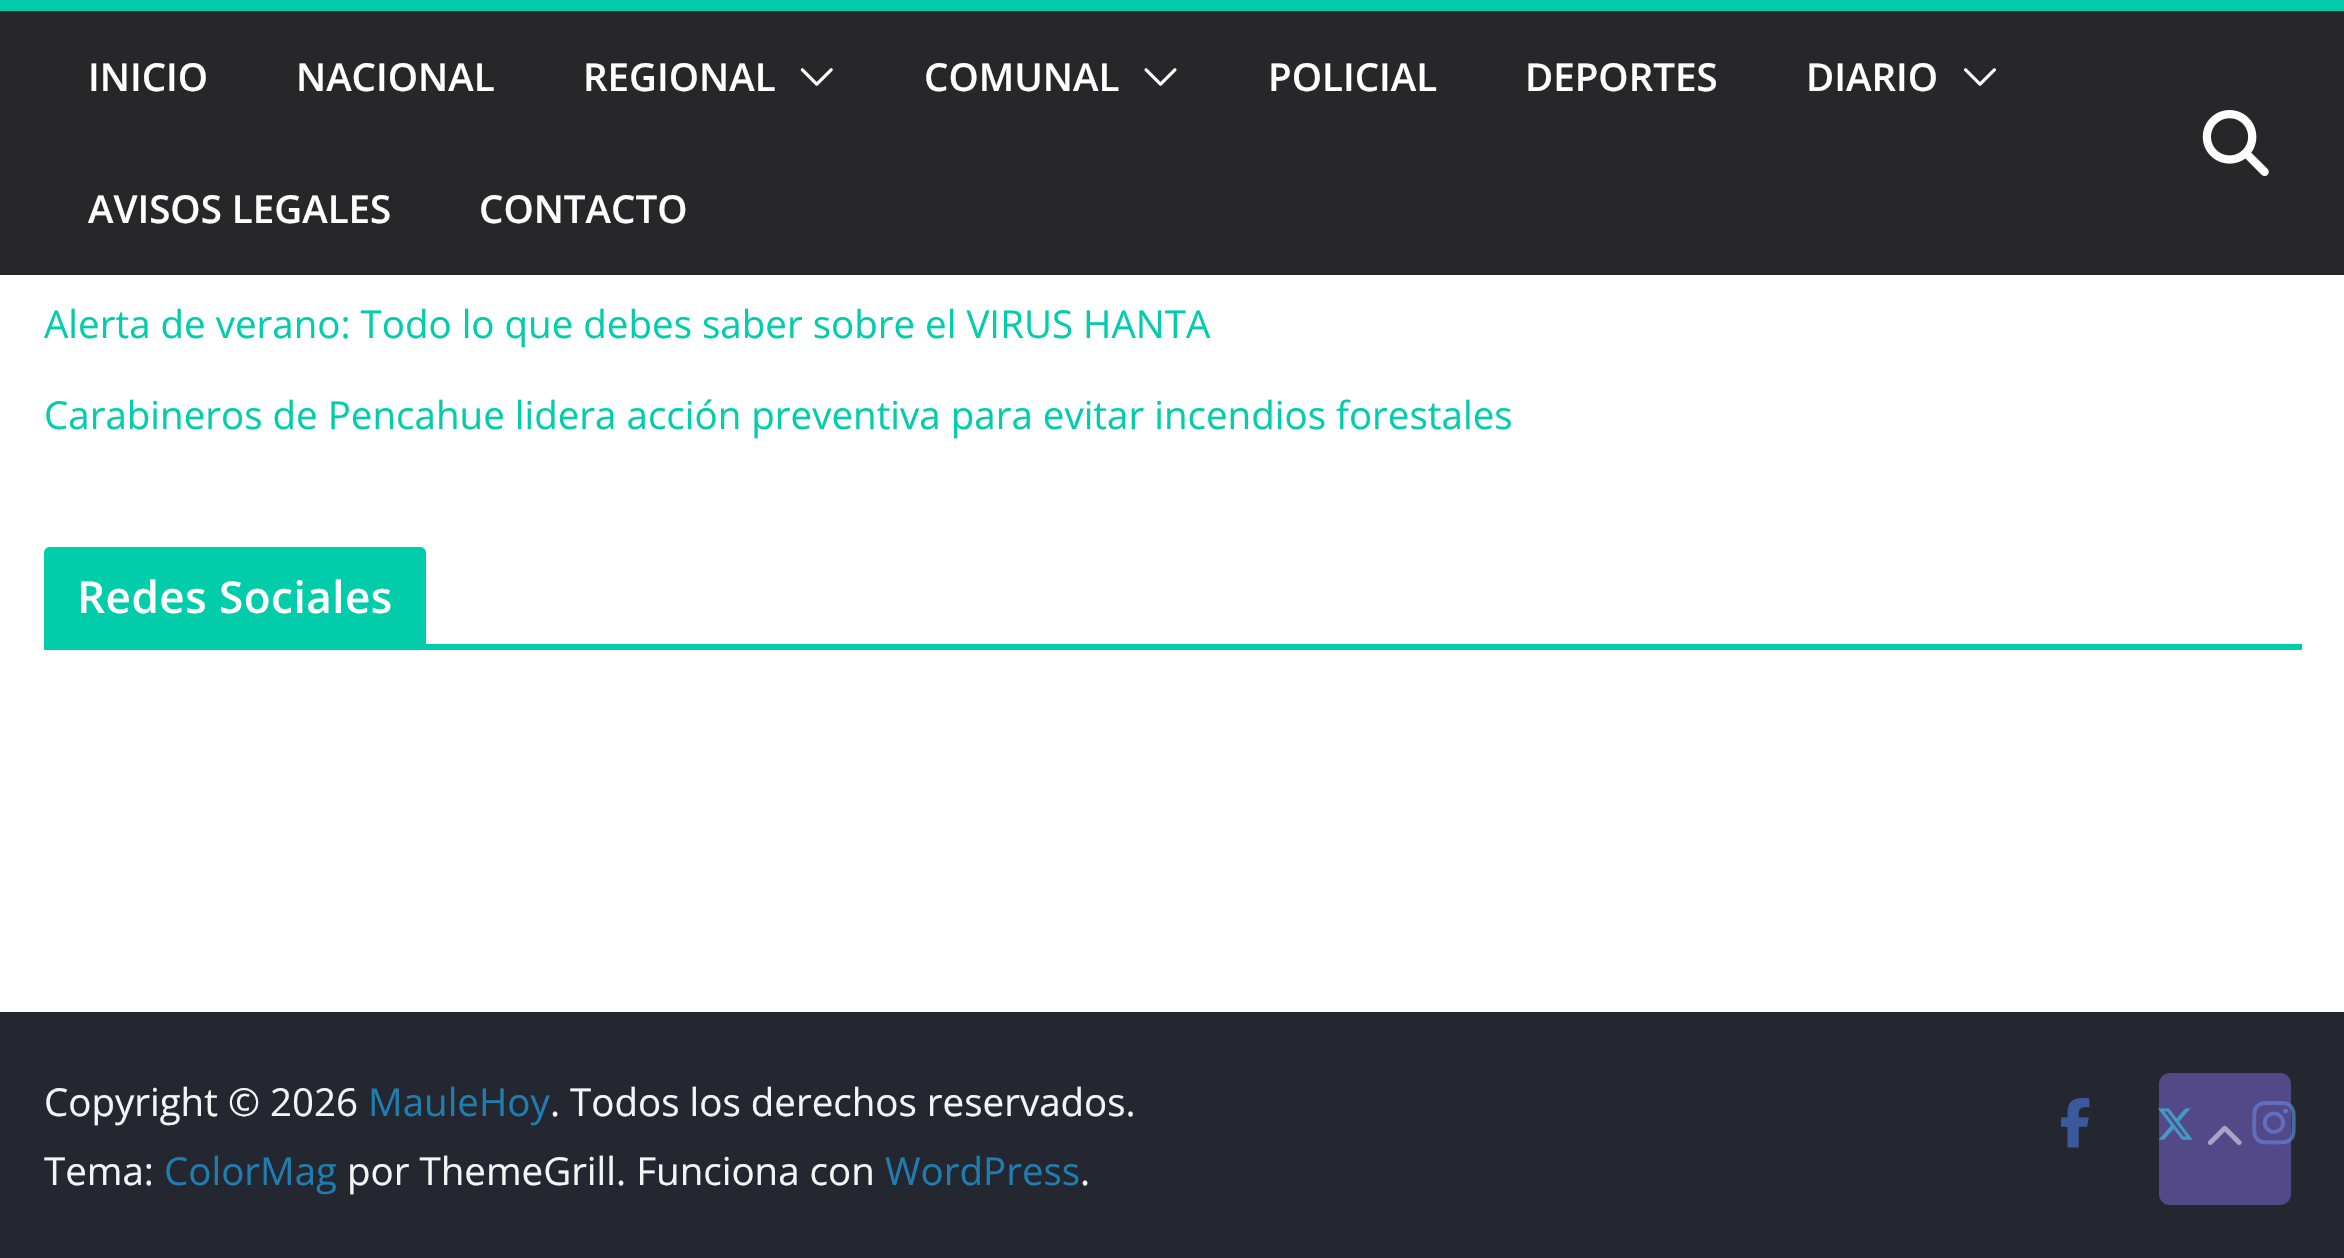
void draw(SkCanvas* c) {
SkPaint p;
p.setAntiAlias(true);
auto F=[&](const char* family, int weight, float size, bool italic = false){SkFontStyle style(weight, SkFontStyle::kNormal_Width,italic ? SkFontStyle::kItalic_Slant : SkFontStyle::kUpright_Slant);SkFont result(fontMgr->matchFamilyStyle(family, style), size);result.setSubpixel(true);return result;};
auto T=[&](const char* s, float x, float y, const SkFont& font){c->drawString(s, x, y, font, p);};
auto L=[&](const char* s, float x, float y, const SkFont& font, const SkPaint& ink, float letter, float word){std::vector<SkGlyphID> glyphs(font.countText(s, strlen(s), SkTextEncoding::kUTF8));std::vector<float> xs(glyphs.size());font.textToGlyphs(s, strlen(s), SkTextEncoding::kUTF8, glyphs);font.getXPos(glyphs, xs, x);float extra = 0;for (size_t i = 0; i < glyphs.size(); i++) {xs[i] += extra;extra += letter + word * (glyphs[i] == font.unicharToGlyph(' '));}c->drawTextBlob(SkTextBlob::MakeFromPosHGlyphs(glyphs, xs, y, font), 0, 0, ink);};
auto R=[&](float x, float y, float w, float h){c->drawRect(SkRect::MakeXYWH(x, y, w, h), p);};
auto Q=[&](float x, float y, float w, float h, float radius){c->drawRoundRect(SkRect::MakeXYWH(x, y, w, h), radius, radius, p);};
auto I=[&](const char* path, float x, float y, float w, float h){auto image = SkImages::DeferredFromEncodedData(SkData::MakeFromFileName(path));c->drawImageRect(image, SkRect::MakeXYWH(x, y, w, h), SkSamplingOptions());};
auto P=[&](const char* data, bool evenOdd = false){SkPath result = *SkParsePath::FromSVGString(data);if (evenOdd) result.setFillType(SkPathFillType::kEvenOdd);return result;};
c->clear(0xffffffff);
p.setColor(0xff27272a);
R(0,11,2344,264);
p.setColor(0xff02cdab);
R(0,0,2344,11);
auto f1 = F("Open Sans",600,38.5);
p.setColor(0xffffffff);
T("INICIO",88,91,f1);
T("NACIONAL",296,91,f1);
T("REGIONAL",583,91,f1);
I("1.png",800,68,33,18);
T("COMUNAL",924,91,f1);
I("2.png",1144,68,33,18);
T("POLICIAL",1268,91,f1);
T("DEPORTES",1525,91,f1);
T("DIARIO",1806,91,f1);
I("3.png",1964,68,32,18);
T("AVISOS LEGALES",88,223,f1);
T("CONTACTO",479,223,f1);
I("4.png",2202,110,67,66);
auto f2 = F("Open Sans",400,38.5);
p.setColor(0xff02cdab);
T("Alerta de verano: Todo lo que debes saber sobre el VIRUS HANTA",44,338,f2);
T("Carabineros de Pencahue lidera acción preventiva para evitar incendios forestales",44,429,f2);
R(44,644,2258,6);
c->drawPath(P("M50 547h370c3.5 0 6 2.5 6 6v91h-382v-91c0-3.5 2.5-6 6-6z"),p);
auto f3 = F("Open Sans",600,44);
p.setColor(0xffffffff);
L("Redes Sociales",77,613,f3,p,.5,0);
p.setColor(0xff252730);
R(0,1012,2344,246);
p.setColor(0xfff4f4f5);
T("Copyright © 2026",44,1116,f2);
p.setColor(0xff207daf);
T("MauleHoy",368,1116,f2);
p.setColor(0xfff4f4f5);
T(". Todos los derechos reservados.",550,1116,f2);
T("Tema:",44,1185,f2);
p.setColor(0xff207daf);
T("ColorMag",164,1185,f2);
p.setColor(0xfff4f4f5);
T("por ThemeGrill. Funciona con",347,1185,f2);
p.setColor(0xff207daf);
T("WordPress",885,1185,f2);
p.setColor(0xfff4f4f5);
T(".",1080,1185,f2);
I("5.png",2061,1097,29,51);
I("6.png",2158,1108,35,32);
I("7.png",2252,1101,44,44);
p.setColor(0x808269df);
Q(2159,1073,132,132,11);
I("8.png",2207,1125,35,20);
}
